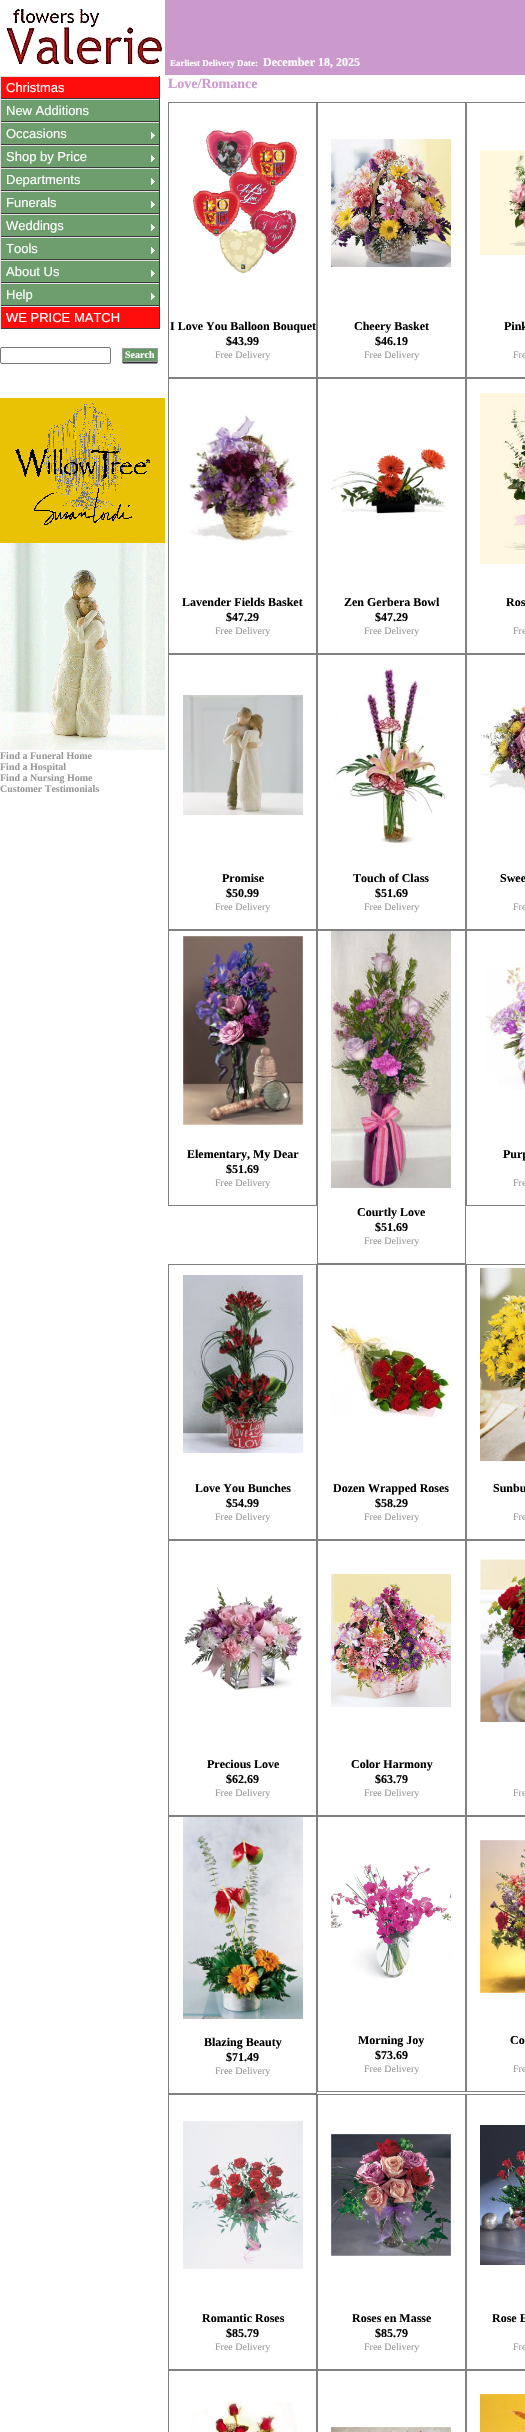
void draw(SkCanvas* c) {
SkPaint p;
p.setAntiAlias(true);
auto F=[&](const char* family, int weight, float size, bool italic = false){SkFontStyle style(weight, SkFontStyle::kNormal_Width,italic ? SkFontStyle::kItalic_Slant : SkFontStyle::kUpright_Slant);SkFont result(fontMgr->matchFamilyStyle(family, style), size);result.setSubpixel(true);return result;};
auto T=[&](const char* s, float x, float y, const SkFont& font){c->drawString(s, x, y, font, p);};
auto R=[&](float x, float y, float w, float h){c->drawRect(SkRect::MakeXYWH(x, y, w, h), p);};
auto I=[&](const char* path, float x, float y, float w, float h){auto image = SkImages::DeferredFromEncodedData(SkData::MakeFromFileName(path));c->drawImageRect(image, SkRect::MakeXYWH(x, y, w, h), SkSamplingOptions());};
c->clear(0xffffffff);
I("1.png",6,9,157,56);
p.setColor(0xffcc99cc);
R(165,0,360,75);
auto f1 = F("Liberation Serif",700,9);
p.setColor(0xffffffff);
T("Earliest Delivery Date:",170,66,f1);
auto f2 = F("Liberation Serif",700,12);
T("December 18, 2025",263,66,f2);
p.setColor(0xffff0d0d);
R(1,77,158,21);
p.setColor(0xffdfdfdf);
R(0,76,160,1);
p.setColor(0xff3d3d3d);
R(159,76,1,23);
R(0,98,160,1);
p.setColor(0xffdfdfdf);
R(0,76,1,23);
auto f3 = F("Liberation Sans",400,13);
p.setColor(0xffffffff);
T("Christmas",6,92,f3);
p.setColor(0xff6e9e6e);
R(1,100,158,21);
p.setColor(0xffdfdfdf);
R(0,99,160,1);
p.setColor(0xff3d3d3d);
R(159,99,1,23);
R(0,121,160,1);
p.setColor(0xffdfdfdf);
R(0,99,1,23);
p.setColor(0xffffffff);
T("New Additions",6,115,f3);
p.setColor(0xff6e9e6e);
R(1,123,158,21);
I("2.png",151,132,4,7);
p.setColor(0xffdfdfdf);
R(0,122,160,1);
p.setColor(0xff3d3d3d);
R(159,122,1,23);
R(0,144,160,1);
p.setColor(0xffdfdfdf);
R(0,122,1,23);
p.setColor(0xffffffff);
T("Occasions",6,138,f3);
p.setColor(0xff6e9e6e);
R(1,146,158,21);
I("2.png",151,155,4,7);
p.setColor(0xffdfdfdf);
R(0,145,160,1);
p.setColor(0xff3d3d3d);
R(159,145,1,23);
R(0,167,160,1);
p.setColor(0xffdfdfdf);
R(0,145,1,23);
p.setColor(0xffffffff);
T("Shop by Price",6,161,f3);
p.setColor(0xff6e9e6e);
R(1,169,158,21);
I("2.png",151,178,4,7);
p.setColor(0xffdfdfdf);
R(0,168,160,1);
p.setColor(0xff3d3d3d);
R(159,168,1,23);
R(0,190,160,1);
p.setColor(0xffdfdfdf);
R(0,168,1,23);
p.setColor(0xffffffff);
T("Departments",6,184,f3);
p.setColor(0xff6e9e6e);
R(1,192,158,21);
I("2.png",151,201,4,7);
p.setColor(0xffdfdfdf);
R(0,191,160,1);
p.setColor(0xff3d3d3d);
R(159,191,1,23);
R(0,213,160,1);
p.setColor(0xffdfdfdf);
R(0,191,1,23);
p.setColor(0xffffffff);
T("Funerals",6,207,f3);
p.setColor(0xff6e9e6e);
R(1,215,158,21);
I("2.png",151,224,4,7);
p.setColor(0xffdfdfdf);
R(0,214,160,1);
p.setColor(0xff3d3d3d);
R(159,214,1,23);
R(0,236,160,1);
p.setColor(0xffdfdfdf);
R(0,214,1,23);
p.setColor(0xffffffff);
T("Weddings",6,230,f3);
p.setColor(0xff6e9e6e);
R(1,238,158,21);
I("2.png",151,247,4,7);
p.setColor(0xffdfdfdf);
R(0,237,160,1);
p.setColor(0xff3d3d3d);
R(159,237,1,23);
R(0,259,160,1);
p.setColor(0xffdfdfdf);
R(0,237,1,23);
p.setColor(0xffffffff);
T("Tools",6,253,f3);
p.setColor(0xff6e9e6e);
R(1,261,158,21);
I("2.png",151,270,4,7);
p.setColor(0xffdfdfdf);
R(0,260,160,1);
p.setColor(0xff3d3d3d);
R(159,260,1,23);
R(0,282,160,1);
p.setColor(0xffdfdfdf);
R(0,260,1,23);
p.setColor(0xffffffff);
T("About Us",6,276,f3);
p.setColor(0xff6e9e6e);
R(1,284,158,21);
I("2.png",151,293,4,7);
p.setColor(0xffdfdfdf);
R(0,283,160,1);
p.setColor(0xff3d3d3d);
R(159,283,1,23);
R(0,305,160,1);
p.setColor(0xffdfdfdf);
R(0,283,1,23);
p.setColor(0xffffffff);
T("Help",6,299,f3);
p.setColor(0xffff0d0d);
R(1,307,158,21);
p.setColor(0xffdfdfdf);
R(0,306,160,1);
p.setColor(0xff3d3d3d);
R(159,306,1,23);
R(0,328,160,1);
p.setColor(0xffdfdfdf);
R(0,306,1,23);
p.setColor(0xffffffff);
T("WE PRICE MATCH",6,322,f3);
p.setStroke(true);
p.setStrokeWidth(1);
p.setColor(0xff767676);
c->drawRoundRect(SkRect::MakeXYWH(.5,347.5,110,16),1.5,1.5,p);
p.setStroke(false);
p.setColor(0xff999999);
R(122,348,1,15);
R(123,348,34,1);
p.setColor(0xff669966);
R(123,349,34,12);
auto f4 = F("Liberation Serif",700,10);
p.setColor(0xffffffff);
T("Search",125,358,f4);
p.setColor(0xff999999);
R(123,361,34,1);
p.setColor(0xff333333);
R(123,362,34,1);
p.setColor(0xff999999);
R(123,363,34,1);
R(157,348,1,15);
I("3.png",0,398,165,352);
T("Find a Funeral Home",0,759,f4);
T("Find a Hospital",0,770,f4);
T("Find a Nursing Home",0,781,f4);
T("Customer Testimonials",0,792,f4);
auto f5 = F("Liberation Serif",700,14);
p.setColor(0xffcc99cc);
T("Love/Romance",168,88,f5);
p.setColor(0xff808080);
R(168,102,357,1);
R(316,102,1,276);
R(168,377,149,2);
R(168,102,1,276);
I("4.png",193,128,106,146);
p.setColor(0xff000000);
T("I Love You Balloon Bouquet",170,330,f2);
T("$43.99",226,345,f2);
auto f6 = F("Liberation Serif",400,10);
p.setColor(0xff999999);
T("Free Delivery",215,358,f6);
p.setColor(0xff808080);
R(465,102,1,276);
R(317,377,208,1);
R(317,102,1,276);
I("5.png",331,139,120,128);
p.setColor(0xff000000);
T("Cheery Basket",354,330,f2);
T("$46.19",375,345,f2);
p.setColor(0xff999999);
T("Free Delivery",364,358,f6);
p.setColor(0xff808080);
R(466,102,1,276);
I("6.png",480,150,45,105);
p.setColor(0xff000000);
T("Pink",504,330,f2);
p.setColor(0xff999999);
T("Fre",513,358,f6);
p.setColor(0xff808080);
R(316,378,1,276);
R(168,653,149,2);
R(168,378,1,276);
I("7.png",187,415,110,129);
p.setColor(0xff000000);
T("Lavender Fields Basket",182,606,f2);
T("$47.29",226,621,f2);
p.setColor(0xff999999);
T("Free Delivery",215,634,f6);
p.setColor(0xff808080);
R(317,378,208,1);
R(465,378,1,276);
R(317,653,208,1);
R(317,378,1,276);
I("8.png",331,448,118,66);
p.setColor(0xff000000);
T("Zen Gerbera Bowl",344,606,f2);
T("$47.29",375,621,f2);
p.setColor(0xff999999);
T("Free Delivery",364,634,f6);
p.setColor(0xff808080);
R(466,378,1,276);
I("9.png",480,393,45,171);
p.setColor(0xff000000);
T("Ros",506,606,f2);
p.setColor(0xff999999);
T("Fre",513,634,f6);
p.setColor(0xff808080);
R(316,654,1,276);
R(168,929,149,2);
R(168,654,1,276);
I("10.png",183,695,120,120);
p.setColor(0xff000000);
T("Promise",222,882,f2);
T("$50.99",226,897,f2);
p.setColor(0xff999999);
T("Free Delivery",215,910,f6);
p.setColor(0xff808080);
R(317,654,208,1);
R(465,654,1,276);
R(317,929,208,1);
R(317,654,1,276);
I("11.png",335,669,112,175);
p.setColor(0xff000000);
T("Touch of Class",353,882,f2);
T("$51.69",375,897,f2);
p.setColor(0xff999999);
T("Free Delivery",364,910,f6);
p.setColor(0xff808080);
R(466,654,1,276);
I("12.png",480,705,45,88);
p.setColor(0xff000000);
T("Swee",500,882,f2);
p.setColor(0xff999999);
T("Fre",513,910,f6);
p.setColor(0xff808080);
R(316,930,1,276);
R(168,1205,149,1);
R(168,930,1,276);
I("13.png",183,936,120,189);
p.setColor(0xff000000);
T("Elementary, My Dear",187,1158,f2);
T("$51.69",226,1173,f2);
p.setColor(0xff999999);
T("Free Delivery",215,1186,f6);
p.setColor(0xff808080);
R(466,1205,59,1);
R(317,930,208,1);
R(466,930,1,276);
I("14.png",486,964,39,125);
p.setColor(0xff000000);
T("Purp",503,1158,f2);
p.setColor(0xff999999);
T("Fre",513,1186,f6);
p.setColor(0xff808080);
R(465,930,1,334);
R(317,1263,149,1);
R(317,930,1,334);
I("15.png",331,931,120,257);
p.setColor(0xff000000);
T("Courtly Love",357,1216,f2);
T("$51.69",375,1231,f2);
p.setColor(0xff999999);
T("Free Delivery",364,1244,f6);
p.setColor(0xff808080);
R(168,1264,357,1);
R(316,1264,1,276);
R(168,1539,149,2);
R(168,1264,1,276);
I("16.png",183,1275,120,178);
p.setColor(0xff000000);
T("Love You Bunches",195,1492,f2);
T("$54.99",226,1507,f2);
p.setColor(0xff999999);
T("Free Delivery",215,1520,f6);
p.setColor(0xff808080);
R(465,1264,1,276);
R(317,1539,208,1);
R(317,1264,1,276);
I("17.png",331,1323,120,96);
p.setColor(0xff000000);
T("Dozen Wrapped Roses",333,1492,f2);
T("$58.29",375,1507,f2);
p.setColor(0xff999999);
T("Free Delivery",364,1520,f6);
p.setColor(0xff808080);
R(466,1264,1,276);
I("18.png",480,1268,45,193);
p.setColor(0xff000000);
T("Sunbu",493,1492,f2);
p.setColor(0xff999999);
T("Fre",513,1520,f6);
p.setColor(0xff808080);
R(316,1540,1,276);
R(168,1815,149,2);
R(168,1540,1,276);
I("19.png",183,1587,120,103);
p.setColor(0xff000000);
T("Precious Love",207,1768,f2);
T("$62.69",226,1783,f2);
p.setColor(0xff999999);
T("Free Delivery",215,1796,f6);
p.setColor(0xff808080);
R(317,1540,208,1);
R(465,1540,1,276);
R(317,1815,208,1);
R(317,1540,1,276);
I("20.png",331,1574,120,133);
p.setColor(0xff000000);
T("Color Harmony",351,1768,f2);
T("$63.79",375,1783,f2);
p.setColor(0xff999999);
T("Free Delivery",364,1796,f6);
p.setColor(0xff808080);
R(466,1540,1,276);
I("21.png",480,1559,45,163);
p.setColor(0xff999999);
T("Fre",513,1796,f6);
p.setColor(0xff808080);
R(316,1816,1,278);
R(168,2093,149,2);
R(168,1816,1,278);
I("22.png",183,1817,120,202);
p.setColor(0xff000000);
T("Blazing Beauty",204,2046,f2);
T("$71.49",226,2061,f2);
p.setColor(0xff999999);
T("Free Delivery",215,2074,f6);
p.setColor(0xff808080);
R(317,1816,208,1);
R(465,1816,1,276);
R(317,2091,208,1);
R(317,1816,1,276);
I("23.png",331,1863,120,116);
p.setColor(0xff000000);
T("Morning Joy",358,2044,f2);
T("$73.69",375,2059,f2);
p.setColor(0xff999999);
T("Free Delivery",364,2072,f6);
p.setColor(0xff808080);
R(466,1816,1,276);
I("24.png",480,1840,45,153);
p.setColor(0xff000000);
T("Co",510,2044,f2);
p.setColor(0xff999999);
T("Fre",513,2072,f6);
p.setColor(0xff808080);
R(316,2094,1,276);
R(168,2369,149,2);
R(168,2094,1,338);
I("25.png",183,2121,120,148);
p.setColor(0xff000000);
T("Romantic Roses",202,2322,f2);
T("$85.79",226,2337,f2);
p.setColor(0xff999999);
T("Free Delivery",215,2350,f6);
p.setColor(0xff808080);
R(317,2094,208,1);
R(465,2094,1,276);
R(317,2369,208,1);
R(317,2094,1,276);
I("26.png",331,2134,120,122);
p.setColor(0xff000000);
T("Roses en Masse",352,2322,f2);
T("$85.79",375,2337,f2);
p.setColor(0xff999999);
T("Free Delivery",364,2350,f6);
p.setColor(0xff808080);
R(466,2094,1,276);
I("27.png",480,2125,45,140);
p.setColor(0xff000000);
T("Rose E",492,2322,f2);
p.setColor(0xff999999);
T("Fre",513,2350,f6);
p.setColor(0xff808080);
R(316,2370,1,62);
I("28.png",190,2401,107,31);
R(317,2370,208,1);
R(465,2370,2,62);
R(317,2370,1,62);
I("29.png",331,2427,120,5);
I("30.png",480,2394,45,38);
}
